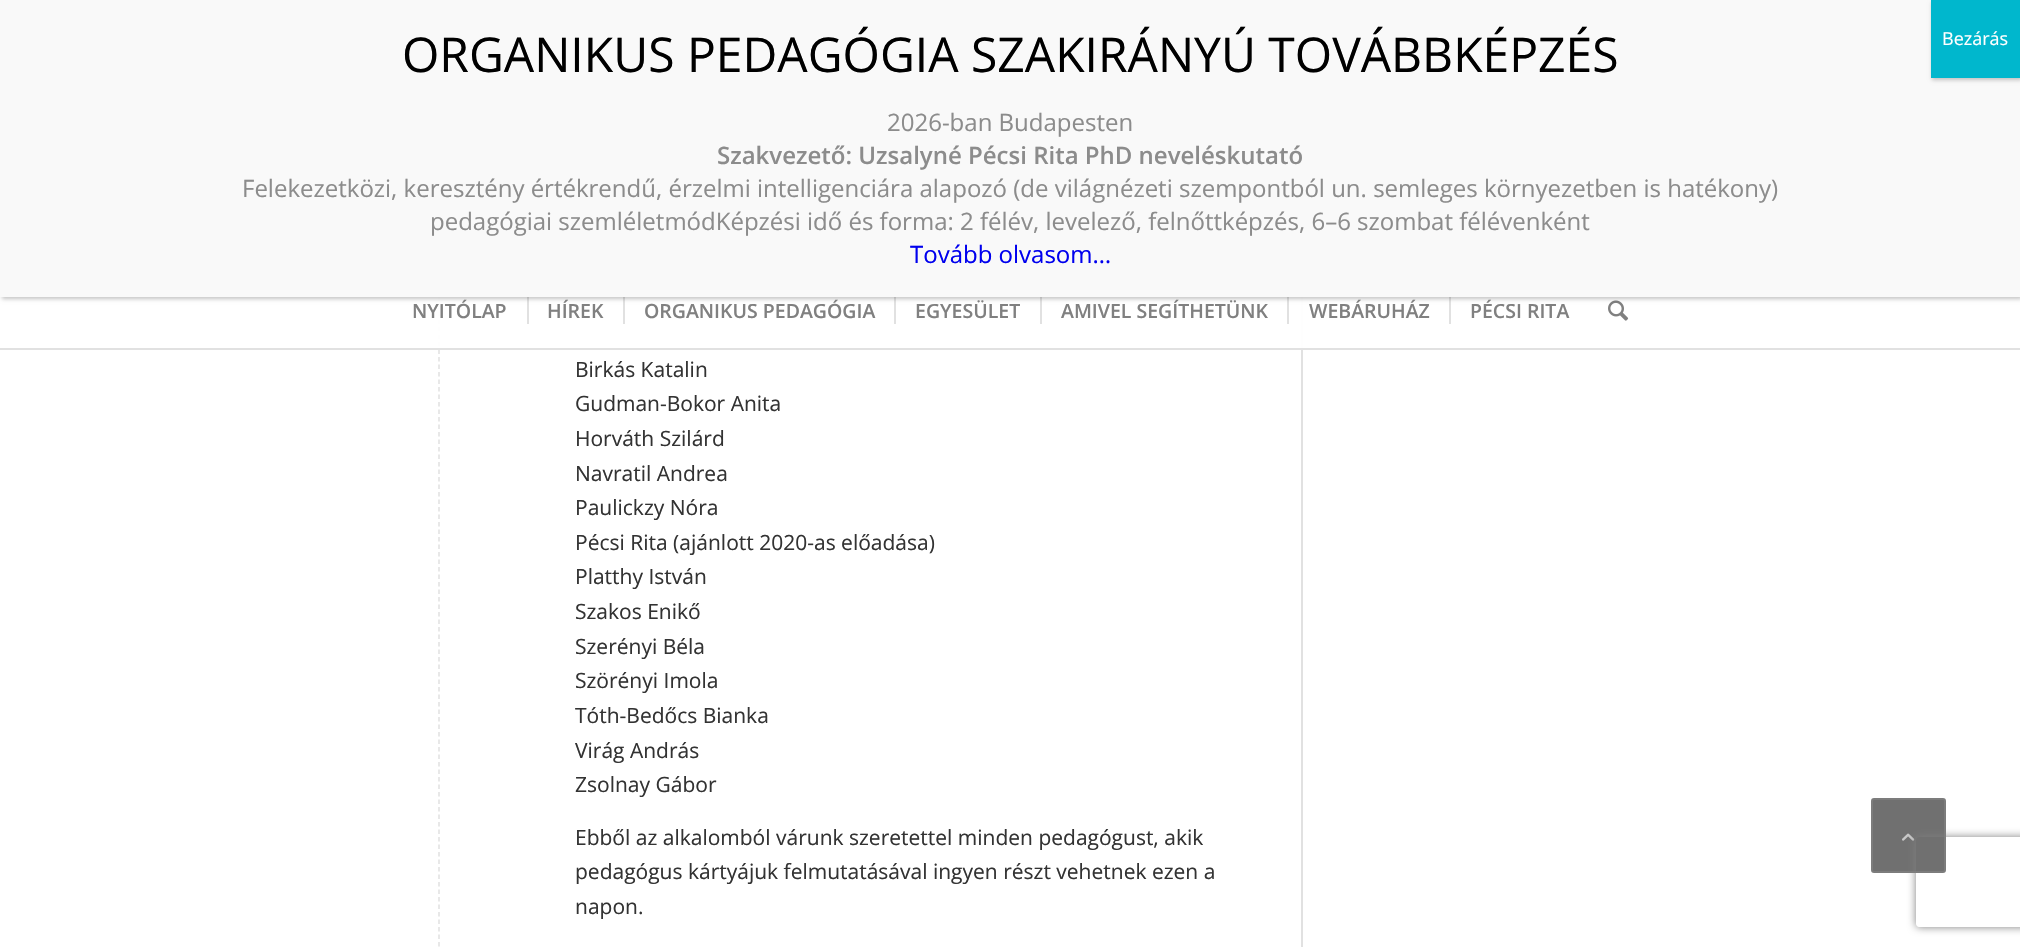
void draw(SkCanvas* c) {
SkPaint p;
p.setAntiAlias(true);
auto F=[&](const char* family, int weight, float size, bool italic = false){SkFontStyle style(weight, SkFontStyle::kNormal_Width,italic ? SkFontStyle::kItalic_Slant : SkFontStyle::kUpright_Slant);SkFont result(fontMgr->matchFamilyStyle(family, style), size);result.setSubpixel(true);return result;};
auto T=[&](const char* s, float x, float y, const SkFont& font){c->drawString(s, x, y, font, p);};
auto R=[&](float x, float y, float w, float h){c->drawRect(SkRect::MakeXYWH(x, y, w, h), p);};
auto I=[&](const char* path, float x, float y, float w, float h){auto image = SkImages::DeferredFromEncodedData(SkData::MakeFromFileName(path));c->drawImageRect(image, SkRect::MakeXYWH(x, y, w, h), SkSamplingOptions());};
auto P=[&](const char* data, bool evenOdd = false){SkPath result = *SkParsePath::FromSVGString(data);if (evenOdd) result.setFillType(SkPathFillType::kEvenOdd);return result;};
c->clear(0xffffffff);
p.setColor(0xffe1e1e1);
R(1301,297,2,650);
p.setStroke(true);
p.setStrokeWidth(1.5);
p.setPathEffect(SkDashPathEffect::Make({{4.5f,3}}, 0));
c->drawPath(P("M439-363v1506"),p);
p.setPathEffect(nullptr);
p.setStroke(false);
p.setColor(0xf2ffffff);
R(438,297,865,51);
p.setColor(0xffe1e1e1);
R(527,297,2,27);
R(623,297,2,27);
R(894,297,2,27);
R(1040,297,2,27);
R(1287,297,2,27);
R(1449,297,2,27);
I("1.png",1608,300,21,21);
p.setColor(0x3b020202);
p.setMaskFilter(SkMaskFilter::MakeBlur(kNormal_SkBlurStyle, 2));
c->drawRect(SkRect::MakeXYWH(2,2,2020,297),p);
p.setMaskFilter(nullptr);
p.setColor(0xfff9f9f9);
R(0,0,2020,297);
auto f1 = F("Open Sans",400,48);
p.setColor(0xff000000);
T("ORGANIKUS PEDAGÓGIA SZAKIRÁNYÚ TOVÁBBKÉPZÉS",402,72,f1);
p.setColor(0x3b020202);
p.setMaskFilter(SkMaskFilter::MakeBlur(kNormal_SkBlurStyle, 2));
c->drawRect(SkRect::MakeXYWH(1932,2,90,78),p);
p.setMaskFilter(nullptr);
p.setColor(0xff00b7cd);
R(1931,0,89,78);
auto f2 = F("Open Sans",400,18);
p.setColor(0xffffffff);
T("Bezárás",1942,45,f2);
auto f3 = F("Open Sans",400,24);
p.setColor(0xff8c8c8c);
T("2026-ban Budapesten",887,131,f3);
auto f4 = F("Open Sans",600,24);
T("Szakvezető: Uzsalyné Pécsi Rita PhD neveléskutató",717,164,f4);
T("Felekezetközi, keresztény értékrendű, érzelmi intelligenciára alapozó (de világnézeti szempontból un. semleges környezetben is hatékony)",242,197,f3);
T("pedagógiai szemléletmódKépzési idő és forma: 2 félév, levelező, felnőttképzés, 6–6 szombat félévenként",430,230,f3);
p.setColor(0xff0000ee);
T("Tovább olvasom…",910,263,f3);
p.setColor(0xffe1e1e1);
R(0,348,2020,2);
auto f5 = F("Open Sans",600,19.5);
p.setColor(0xff808080);
T("NYITÓLAP",412,318,f5);
T("HÍREK",547,318,f5);
T("ORGANIKUS PEDAGÓGIA",644,318,f5);
T("EGYESÜLET",915,318,f5);
T("AMIVEL SEGÍTHETÜNK",1061,318,f5);
T("WEBÁRUHÁZ",1309,318,f5);
T("PÉCSI RITA",1470,318,f5);
auto f6 = F("Open Sans",400,21);
p.setColor(0xff333333);
T("Birkás Katalin",575,377,f6);
T("Gudman-Bokor Anita",575,411,f6);
T("Horváth Szilárd",575,446,f6);
T("Navratil Andrea",575,481,f6);
T("Paulickzy Nóra",575,515,f6);
T("Pécsi Rita (ajánlott 2020-as előadása)",575,550,f6);
T("Platthy István",575,584,f6);
T("Szakos Enikő",575,619,f6);
T("Szerényi Béla",575,654,f6);
T("Szörényi Imola",575,688,f6);
T("Tóth-Bedőcs Bianka",575,723,f6);
T("Virág András",575,758,f6);
T("Zsolnay Gábor",575,792,f6);
T("Ebből az alkalomból várunk szeretettel minden pedagógust, akik",575,845,f6);
T("pedagógus kártyájuk felmutatásával ingyen részt vehetnek ezen a",575,879,f6);
T("napon.",575,914,f6);
p.setColor(0xff707070);
c->drawRoundRect(SkRect::MakeXYWH(1872,799,73,73),2,2,p);
p.setStroke(true);
p.setStrokeWidth(2);
p.setColor(0xff7c7c7c);
c->drawRoundRect(SkRect::MakeXYWH(1872,799,73,73),2,2,p);
I("2.png",1902,833,13,8);
c->save();
c->clipPath(P("M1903 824h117v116h-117zm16 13h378c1.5 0 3 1.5 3 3v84c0 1.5-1.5 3-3 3h-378c-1.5 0-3-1.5-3-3v-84c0-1.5 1.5-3 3-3z",true),true);
p.setStroke(false);
p.setColor(0xff808080);
p.setMaskFilter(SkMaskFilter::MakeBlur(kNormal_SkBlurStyle, 4));
c->drawRoundRect(SkRect::MakeXYWH(1916,837,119,90),3,3,p);
p.setMaskFilter(nullptr);
c->restore();
}
